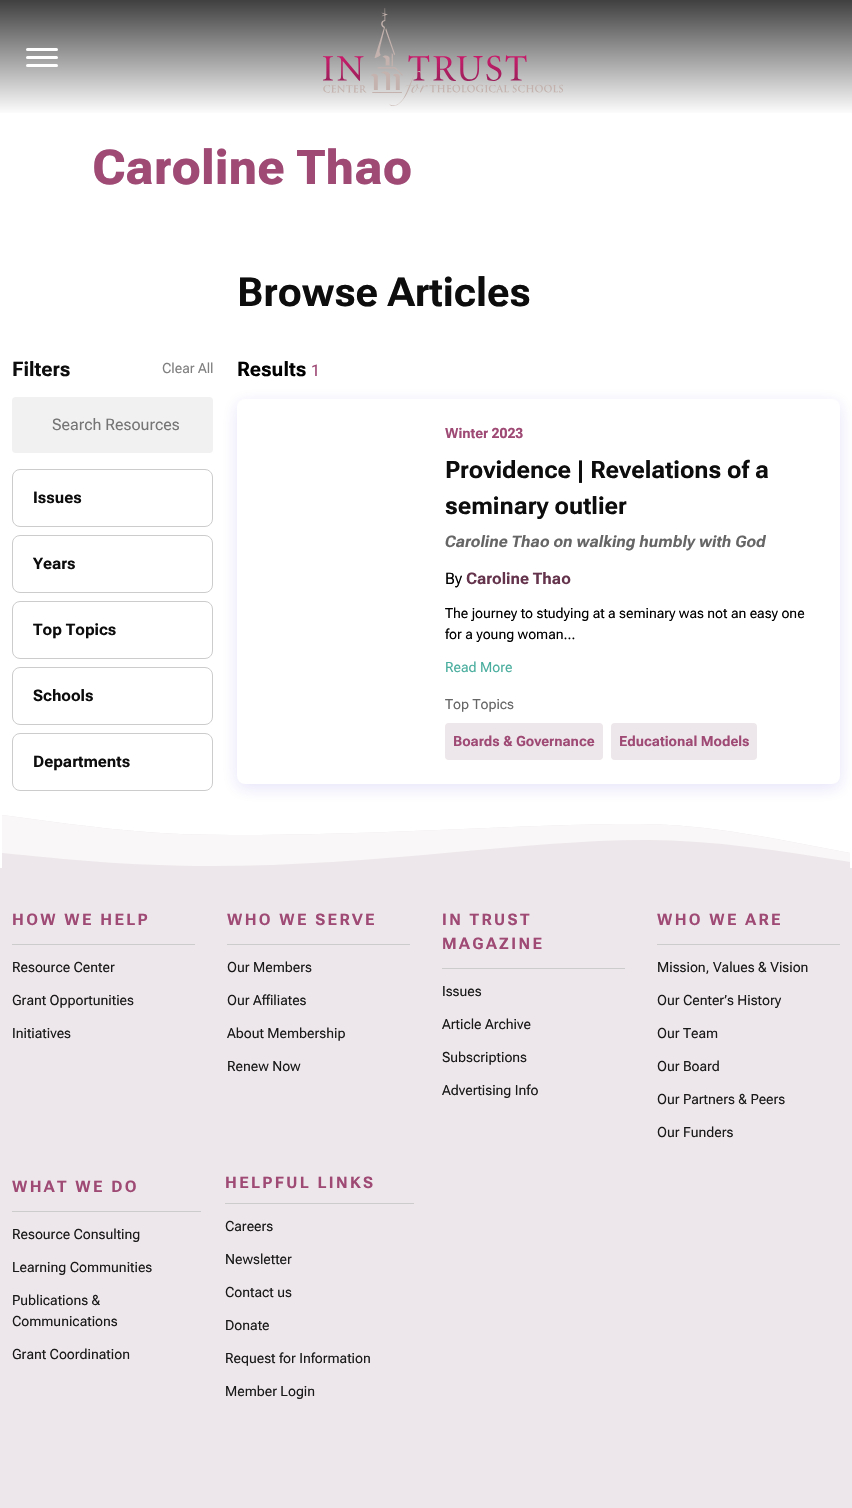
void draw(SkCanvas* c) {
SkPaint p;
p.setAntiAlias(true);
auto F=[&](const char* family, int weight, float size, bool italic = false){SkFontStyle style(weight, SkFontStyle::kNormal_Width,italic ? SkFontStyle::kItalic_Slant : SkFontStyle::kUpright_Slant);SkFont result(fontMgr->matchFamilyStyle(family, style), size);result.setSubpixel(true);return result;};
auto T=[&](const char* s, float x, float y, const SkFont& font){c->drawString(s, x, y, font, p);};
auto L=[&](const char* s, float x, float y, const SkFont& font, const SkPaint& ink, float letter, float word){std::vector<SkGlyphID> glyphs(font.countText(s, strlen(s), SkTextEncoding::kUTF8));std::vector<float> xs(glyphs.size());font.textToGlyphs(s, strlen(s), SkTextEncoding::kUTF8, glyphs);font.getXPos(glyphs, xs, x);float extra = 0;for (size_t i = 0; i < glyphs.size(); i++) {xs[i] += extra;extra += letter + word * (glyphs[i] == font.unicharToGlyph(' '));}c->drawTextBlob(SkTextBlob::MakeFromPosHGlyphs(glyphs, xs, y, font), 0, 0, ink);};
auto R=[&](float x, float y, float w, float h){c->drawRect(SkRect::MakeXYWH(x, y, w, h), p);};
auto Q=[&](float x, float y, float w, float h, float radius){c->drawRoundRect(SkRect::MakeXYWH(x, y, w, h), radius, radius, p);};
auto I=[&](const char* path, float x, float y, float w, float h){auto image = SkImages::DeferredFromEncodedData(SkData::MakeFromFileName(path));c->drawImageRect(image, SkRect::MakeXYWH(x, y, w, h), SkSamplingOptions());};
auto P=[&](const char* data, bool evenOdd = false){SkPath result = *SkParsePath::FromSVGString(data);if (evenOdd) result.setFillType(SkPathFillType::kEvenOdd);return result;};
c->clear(0xffffffff);
{
const SkColor colors[] = {0xff404040,0xffffffff};
const float stops[] = {0,1};
const SkPoint ends[] = {{426,0}, {426,115}};
p.setShader(SkGradientShader::MakeLinear(ends, colors, stops, 2, SkTileMode::kClamp));
p.setAlpha(255);
}
R(0,0,852,113);
p.setShader(nullptr);
p.setColor(0xffffffff);
Q(26,48,32,3,1.5);
Q(26,56,32,3,1.5);
Q(26,64,32,3,1.5);
I("1.png",323,8,240,98);
auto f1 = F("Roboto Flex",800,48);
p.setColor(0xff9e4a75);
T("Caroline Thao",92,184,f1);
auto f2 = F("Roboto Flex",700,20);
p.setColor(0xff0d0d0d);
T("Filters",12,376,f2);
auto f3 = F("Roboto Flex",400,14);
p.setColor(0xff808080);
T("Clear All",162,373,f3);
p.setColor(0xfff1f1f1);
Q(12,397,201,56,4);
auto f4 = F("Roboto Flex",400,16);
p.setColor(0xff757575);
T("Search Resources",52,430,f4);
p.setStroke(true);
p.setStrokeWidth(1);
p.setColor(0xffcccccc);
c->drawRoundRect(SkRect::MakeXYWH(12.5,469.5,200,57),7.5,7.5,p);
auto f5 = F("Roboto Flex",700,16);
p.setStroke(false);
p.setColor(0xff0d0d0d);
T("Issues",33,503,f5);
p.setStroke(true);
p.setColor(0xffcccccc);
c->drawRoundRect(SkRect::MakeXYWH(12.5,535.5,200,57),7.5,7.5,p);
p.setStroke(false);
p.setColor(0xff0d0d0d);
T("Years",33,569,f5);
p.setStroke(true);
p.setColor(0xffcccccc);
c->drawRoundRect(SkRect::MakeXYWH(12.5,601.5,200,57),7.5,7.5,p);
p.setStroke(false);
p.setColor(0xff0d0d0d);
T("Top Topics",33,635,f5);
p.setStroke(true);
p.setColor(0xffcccccc);
c->drawRoundRect(SkRect::MakeXYWH(12.5,667.5,200,57),7.5,7.5,p);
p.setStroke(false);
p.setColor(0xff0d0d0d);
T("Schools",33,701,f5);
p.setStroke(true);
p.setColor(0xffcccccc);
c->drawRoundRect(SkRect::MakeXYWH(12.5,733.5,200,57),7.5,7.5,p);
p.setStroke(false);
p.setColor(0xff0d0d0d);
T("Departments",33,767,f5);
auto f6 = F("Roboto Flex",700,40);
T("Browse Articles",237,306,f6);
p.setColor(0xff000000);
T("Results",237,376,f2);
p.setColor(0xff9e4a75);
T("1",311,376,f4);
p.setColor(0x1f291acc);
p.setMaskFilter(SkMaskFilter::MakeBlur(kNormal_SkBlurStyle, 8));
c->drawRoundRect(SkRect::MakeXYWH(237,403,603,385),8,8,p);
p.setMaskFilter(nullptr);
p.setColor(0xffffffff);
Q(237,399,603,385,8);
auto f7 = F("Roboto Flex",700,14);
p.setColor(0xff9e4a75);
T("Winter 2023",445,438,f7);
auto f8 = F("Roboto Flex",700,24);
p.setColor(0xff0d0d0d);
T("Providence | Revelations of a",445,478,f8);
T("seminary outlier",445,514,f8);
auto f9 = F("Roboto Flex",700,16,true);
p.setColor(0xff666666);
T("Caroline Thao on walking humbly with God",445,547,f9);
p.setColor(0xff000000);
T("By",445,584,f4);
p.setColor(0xff64334c);
T("Caroline Thao",466,584,f5);
p.setColor(0xff000000);
T("The journey to studying at a seminary was not an easy one",445,618,f3);
T("for a young woman…",445,639,f3);
p.setColor(0xff4aae9e);
T("Read More",445,672,f3);
p.setColor(0xff666666);
T("Top Topics",445,709,f3);
p.setColor(0xffede6ea);
Q(445,723,158,37,4);
p.setColor(0xff9e4a75);
T("Boards & Governance",453,746,f7);
p.setColor(0xffede6ea);
Q(611,723,146,37,4);
p.setColor(0xff9e4a75);
T("Educational Models",619,746,f7);
p.setColor(0xffede6ea);
c->drawPath(P("M850 853v15h-848v-53c70 9 134 20 228 20c167 0 287-11 409-11c69 0 142 16 211 29z"),p);
p.setColor(0xfff9f7f8);
c->drawPath(P("M850 853v9c-67-11-138-22-204-22c-122 0-267 26-434 26c-88 0-148-7-210-13v-38c70 9 134 20 228 20c167 0 287-11 409-11c69 0 142 16 211 29z"),p);
p.setColor(0xffede6ea);
R(0,868,852,640);
p.setColor(0xff9e4a75);
L("HOW WE HELP",12,925,f5,p,2.4,0);
p.setColor(0xffcccccc);
R(12,944,183,1);
p.setColor(0xff1a1a1a);
T("Resource Center",12,972,f3);
T("Grant Opportunities",12,1005,f3);
T("Initiatives",12,1038,f3);
p.setColor(0xff9e4a75);
L("WHO WE SERVE",227,925,f5,p,2.4,0);
p.setColor(0xffcccccc);
R(227,944,183,1);
p.setColor(0xff1a1a1a);
T("Our Members",227,972,f3);
T("Our Affiliates",227,1005,f3);
T("About Membership",227,1038,f3);
T("Renew Now",227,1071,f3);
p.setColor(0xff9e4a75);
L("IN TRUST",442,925,f5,p,2.4,0);
L("MAGAZINE",442,949,f5,p,2.4,0);
p.setColor(0xffcccccc);
R(442,968,183,1);
p.setColor(0xff1a1a1a);
T("Issues",442,996,f3);
T("Article Archive",442,1029,f3);
T("Subscriptions",442,1062,f3);
T("Advertising Info",442,1095,f3);
p.setColor(0xff9e4a75);
L("WHO WE ARE",657,925,f5,p,2.4,0);
p.setColor(0xffcccccc);
R(657,944,183,1);
p.setColor(0xff1a1a1a);
T("Mission, Values & Vision",657,972,f3);
T("Our Center’s History",657,1005,f3);
T("Our Team",657,1038,f3);
T("Our Board",657,1071,f3);
T("Our Partners & Peers",657,1104,f3);
T("Our Funders",657,1137,f3);
p.setColor(0xff9e4a75);
L("WHAT WE DO",12,1192,f5,p,2.4,0);
p.setColor(0xffcccccc);
R(12,1211,189,1);
p.setColor(0xff1a1a1a);
T("Resource Consulting",12,1239,f3);
T("Learning Communities",12,1272,f3);
T("Publications &",12,1305,f3);
T("Communications",12,1326,f3);
T("Grant Coordination",12,1359,f3);
p.setColor(0xff9e4a75);
L("HELPFUL LINKS",225,1188,f5,p,2.4,0);
p.setColor(0xffcccccc);
R(225,1203,189,1);
p.setColor(0xff1a1a1a);
T("Careers",225,1231,f3);
T("Newsletter",225,1264,f3);
T("Contact us",225,1297,f3);
T("Donate",225,1330,f3);
T("Request for Information",225,1363,f3);
T("Member Login",225,1396,f3);
}
